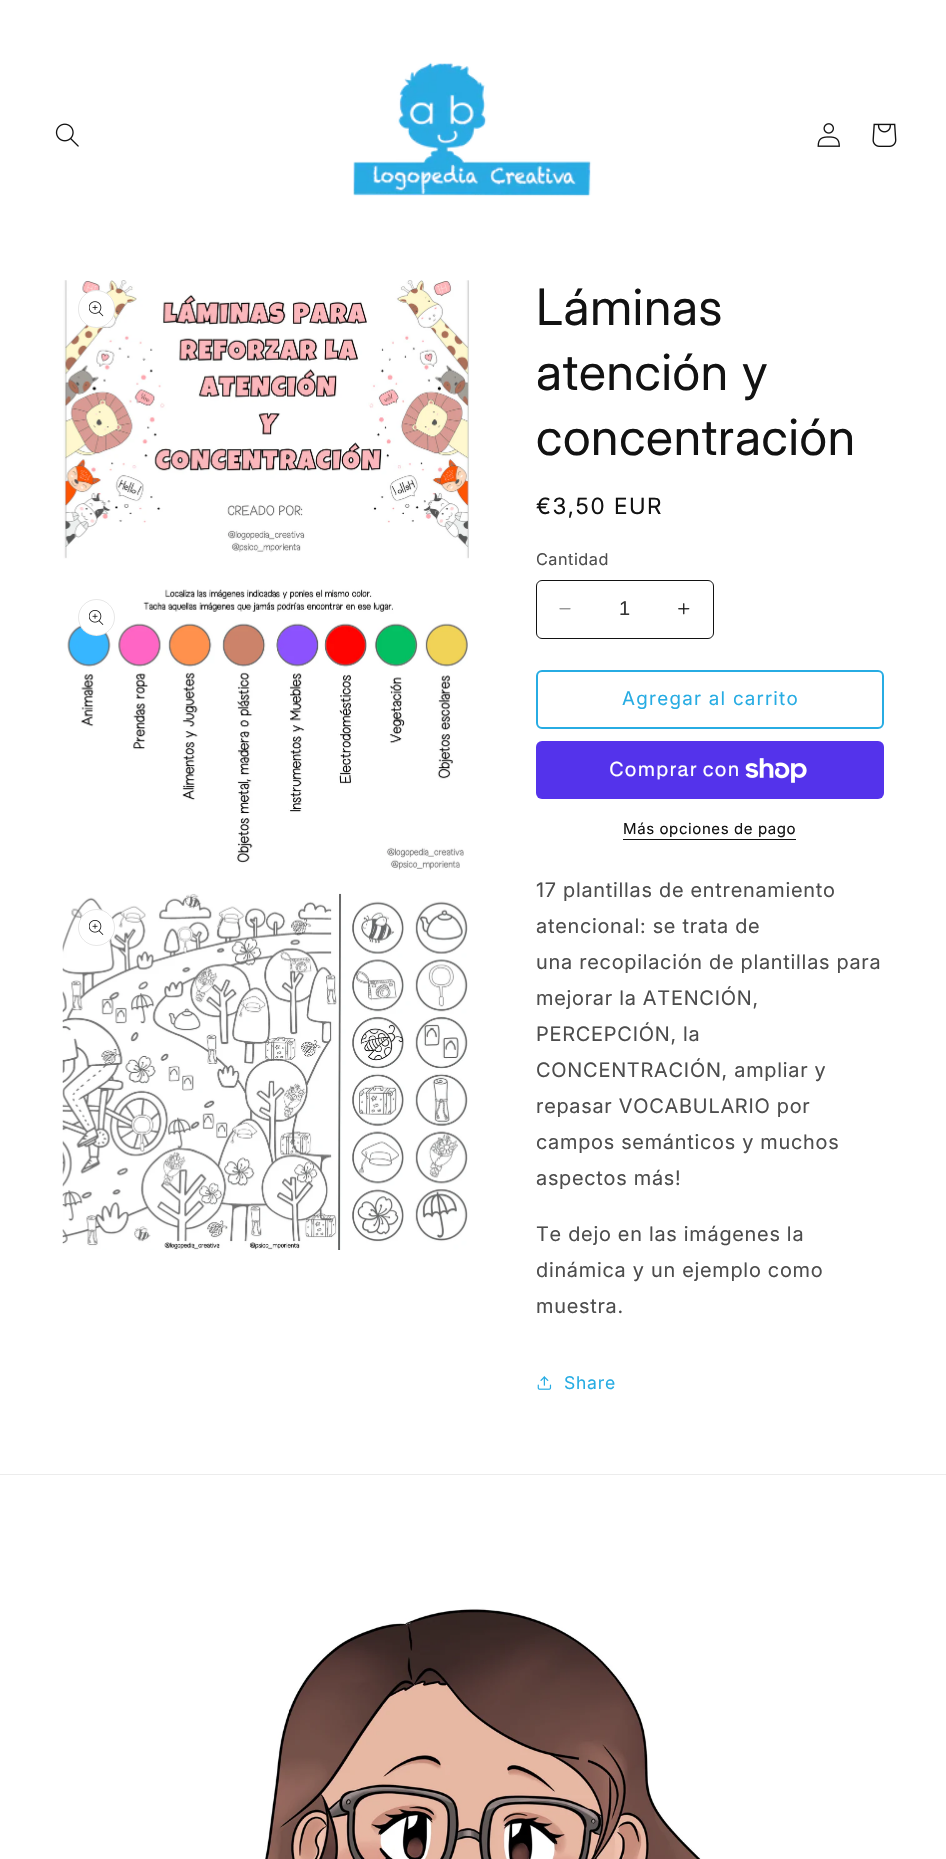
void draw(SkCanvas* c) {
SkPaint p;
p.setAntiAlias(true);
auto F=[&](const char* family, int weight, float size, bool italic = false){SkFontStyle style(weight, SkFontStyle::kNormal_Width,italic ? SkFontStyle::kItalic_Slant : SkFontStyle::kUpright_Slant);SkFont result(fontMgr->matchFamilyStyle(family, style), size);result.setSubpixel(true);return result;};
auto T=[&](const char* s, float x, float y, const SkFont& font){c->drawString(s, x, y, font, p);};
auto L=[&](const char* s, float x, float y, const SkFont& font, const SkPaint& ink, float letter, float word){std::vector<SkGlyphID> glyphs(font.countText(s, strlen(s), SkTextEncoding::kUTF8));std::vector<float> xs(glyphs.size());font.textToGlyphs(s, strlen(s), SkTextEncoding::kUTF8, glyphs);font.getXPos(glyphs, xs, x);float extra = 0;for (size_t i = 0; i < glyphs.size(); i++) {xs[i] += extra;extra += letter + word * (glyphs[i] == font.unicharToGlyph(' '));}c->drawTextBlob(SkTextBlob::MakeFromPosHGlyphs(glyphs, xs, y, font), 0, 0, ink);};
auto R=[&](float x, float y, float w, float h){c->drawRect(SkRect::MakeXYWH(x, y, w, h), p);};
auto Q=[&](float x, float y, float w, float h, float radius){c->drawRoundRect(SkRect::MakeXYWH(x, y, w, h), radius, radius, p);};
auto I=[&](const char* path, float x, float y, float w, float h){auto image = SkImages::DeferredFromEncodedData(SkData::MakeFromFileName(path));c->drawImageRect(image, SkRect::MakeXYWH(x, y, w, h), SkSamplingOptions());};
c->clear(0xffffffff);
I("1.png",55,123,24,24);
I("2.png",353,62,239,135);
I("3.png",817,123,23,24);
I("4.png",872,123,25,24);
I("5.png",63,280,407,279);
p.setColor(0xffffffff);
Q(78,290,37,38,18.5);
p.setStroke(true);
p.setStrokeWidth(1);
p.setColor(0x1a121212);
c->drawRoundRect(SkRect::MakeXYWH(78.5,290.5,36,37),18,18,p);
I("6.png",89,301,15,16);
I("7.png",67,589,401,281);
p.setStroke(false);
p.setColor(0xffffffff);
c->drawCircle(96.5,617.5,18.5,p);
p.setStroke(true);
p.setColor(0x1a121212);
c->drawCircle(96.5,617.5,18,p);
I("8.png",89,610,15,15);
I("9.png",62,893,406,357);
p.setStroke(false);
p.setColor(0xffffffff);
c->drawCircle(96.5,927.5,18.5,p);
p.setStroke(true);
p.setColor(0x1a121212);
c->drawCircle(96.5,927.5,18,p);
I("8.png",89,920,15,15);
auto f1 = F("Inter",400,50);
p.setStroke(false);
p.setColor(0xff121212);
L("Láminas",536,325,f1,p,.75,0);
L("atención y",536,390,f1,p,.75,0);
L("concentración",536,455,f1,p,.75,0);
auto f2 = F("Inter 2",400,22.5);
L("€3,50 EUR",536,514,f2,p,1.6,0);
auto f3 = F("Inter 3",400,16.25);
p.setColor(0xff4d4d4d);
L("Cantidad",536,565,f3,p,.5,0);
I("10.png",559,608,12,2);
I("11.png",678,603,12,12);
p.setStroke(true);
p.setColor(0xff121212);
c->drawRoundRect(SkRect::MakeXYWH(536.5,580.5,177,58),5.5,5.5,p);
auto f4 = F("Liberation Sans",400,20);
p.setStroke(false);
p.setColor(0xff363636);
T("1",619,615,f4);
p.setStroke(true);
p.setStrokeWidth(2);
p.setColor(0xff27ace3);
c->drawRoundRect(SkRect::MakeXYWH(537,671,346,57),5,5,p);
auto f5 = F("Inter 3",400,18.75);
p.setStroke(false);
L("Agregar al carrito",622,705,f5,p,1.25,0);
p.setColor(0xff5433eb);
Q(536,741,348,58,6);
auto f6 = F("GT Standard",400,20);
p.setColor(0xffffffff);
L("Comprar con",609,776,f6,p,.75,0);
I("12.png",745,758,62,25);
auto f7 = F("Inter 3",400,15);
p.setColor(0xff121212);
L("Más opciones de pago",623,834,f7,p,.6,0);
R(623,839,173,1);
auto f8 = F("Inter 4",400,20);
p.setColor(0xff4d4d4d);
L("17 plantillas de entrenamiento",536,897,f8,p,.75,0);
L("atencional: se trata de",536,933,f8,p,.75,0);
L("una recopilación de plantillas para",536,969,f8,p,.75,0);
L("mejorar la ATENCIÓN,",536,1005,f8,p,.75,0);
L("PERCEPCIÓN, la",536,1041,f8,p,.75,0);
L("CONCENTRACIÓN, ampliar y",536,1077,f8,p,.75,0);
L("repasar VOCABULARIO por",536,1113,f8,p,.75,0);
L("campos semánticos y muchos",536,1149,f8,p,.75,0);
L("aspectos más!",536,1185,f8,p,.75,0);
L("Te dejo en las imágenes la",536,1241,f8,p,.75,0);
L("dinámica y un ejemplo como",536,1277,f8,p,.75,0);
L("muestra.",536,1313,f8,p,.75,0);
I("13.png",537,1376,15,14);
auto f9 = F("Inter 3",400,17.5);
p.setColor(0xff27ace3);
L("Share",564,1389,f9,p,.75,0);
p.setColor(0xffececec);
R(0,1474,946,1);
I("14.png",265,1608,436,251);
}
